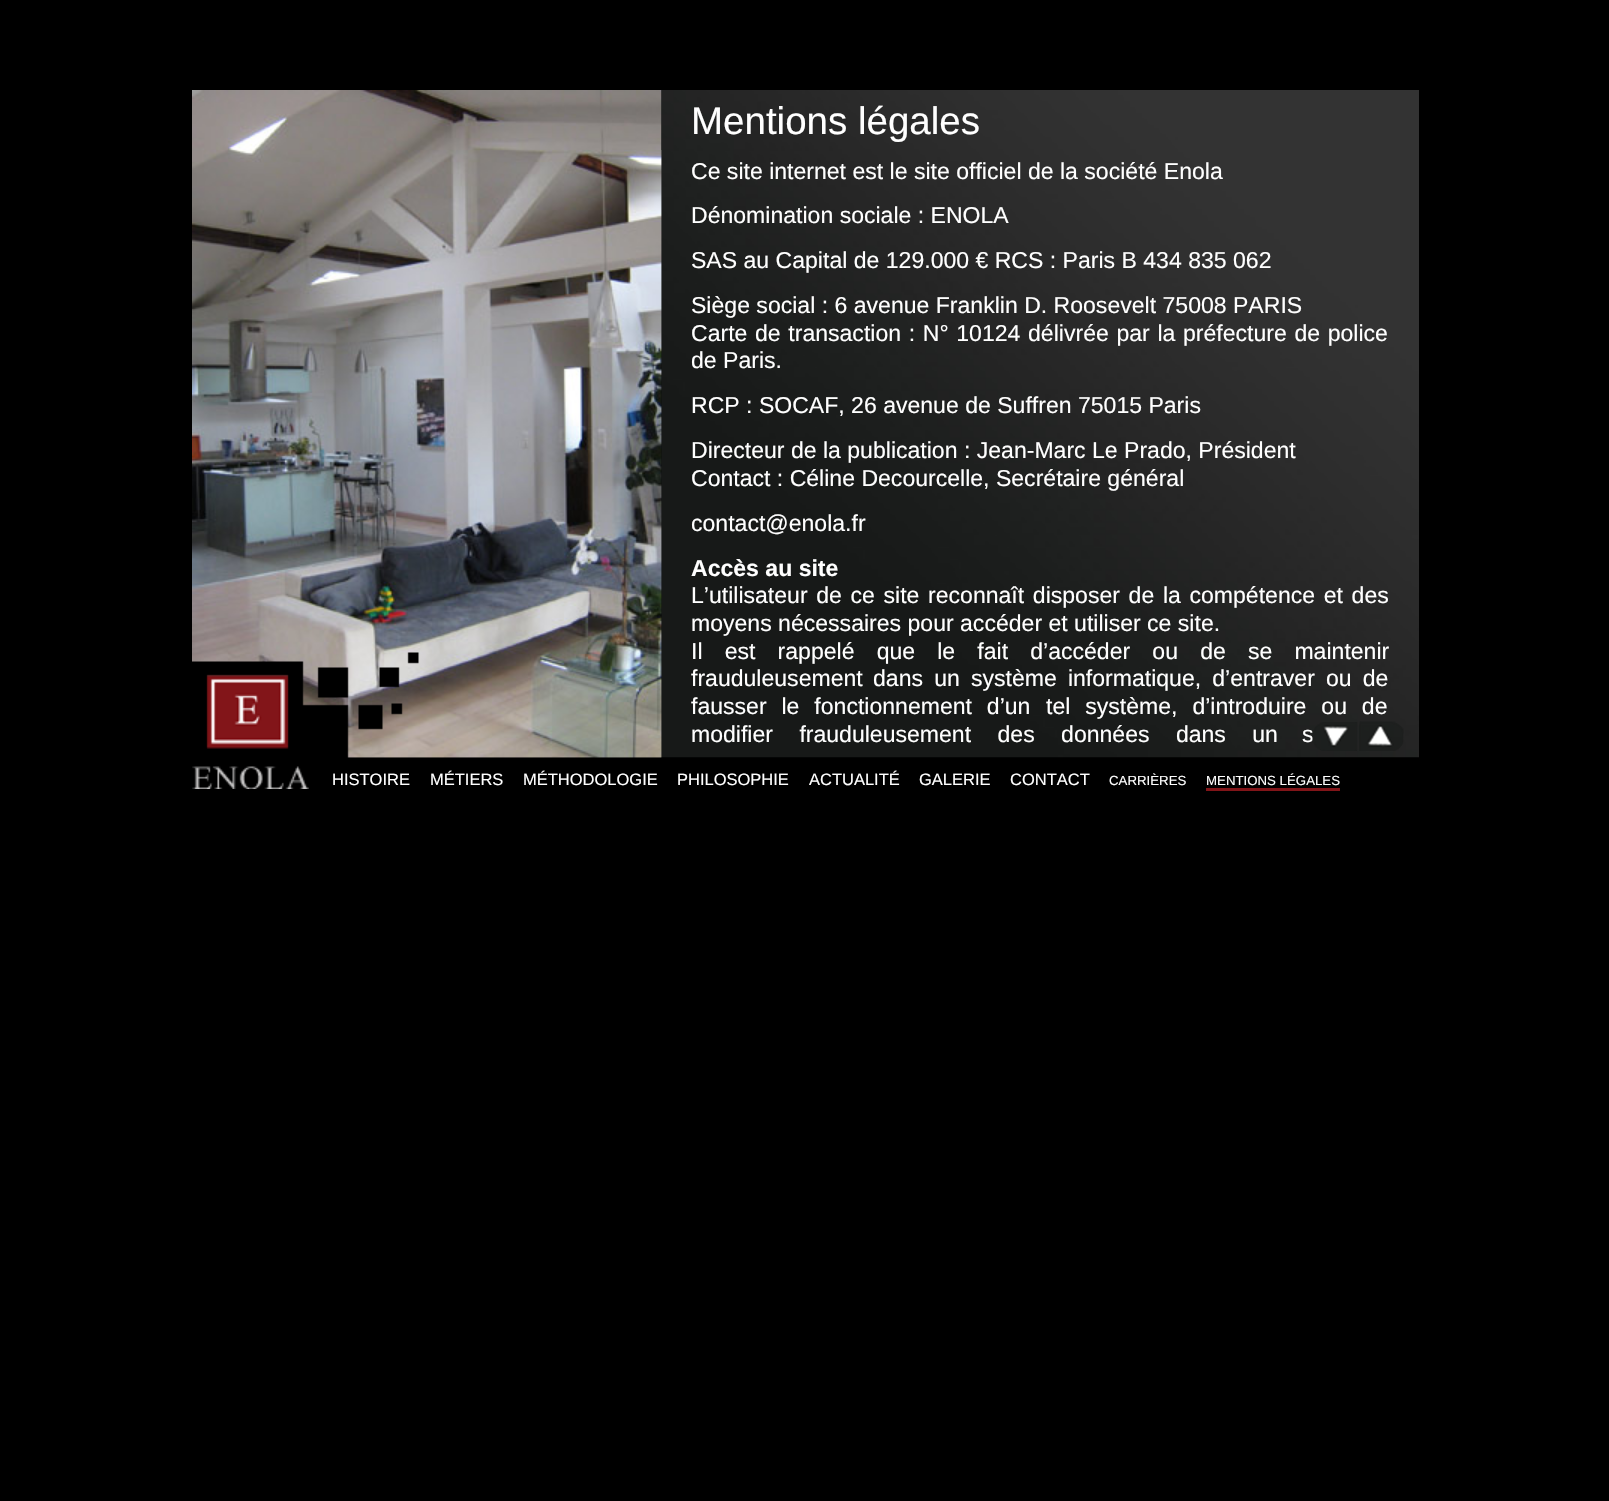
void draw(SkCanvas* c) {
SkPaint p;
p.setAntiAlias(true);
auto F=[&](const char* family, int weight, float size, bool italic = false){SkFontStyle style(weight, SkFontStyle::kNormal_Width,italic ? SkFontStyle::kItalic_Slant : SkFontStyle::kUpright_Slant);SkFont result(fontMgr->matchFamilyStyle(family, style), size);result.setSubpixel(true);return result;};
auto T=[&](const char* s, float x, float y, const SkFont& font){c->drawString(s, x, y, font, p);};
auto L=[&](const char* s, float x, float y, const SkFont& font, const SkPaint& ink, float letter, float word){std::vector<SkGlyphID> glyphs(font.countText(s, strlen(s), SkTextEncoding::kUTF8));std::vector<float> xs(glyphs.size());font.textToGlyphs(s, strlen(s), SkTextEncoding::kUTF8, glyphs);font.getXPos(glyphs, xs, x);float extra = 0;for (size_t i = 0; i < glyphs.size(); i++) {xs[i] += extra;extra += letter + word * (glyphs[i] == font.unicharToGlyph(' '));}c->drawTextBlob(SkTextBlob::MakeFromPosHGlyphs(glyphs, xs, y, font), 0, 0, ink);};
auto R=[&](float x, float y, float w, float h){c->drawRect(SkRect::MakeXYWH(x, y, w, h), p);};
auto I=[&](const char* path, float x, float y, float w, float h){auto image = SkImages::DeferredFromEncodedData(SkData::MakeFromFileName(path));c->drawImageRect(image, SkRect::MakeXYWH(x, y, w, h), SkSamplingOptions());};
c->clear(0xff000000);
I("1.png",347,90,315,668);
I("3.png",661,90,758,668);
I("2.png",192,90,470,668);
I("4.png",661,90,1,60);
auto f1 = F("Liberation Sans",400,38.5);
p.setColor(0xffffffff);
T("Mentions légales",691,134,f1);
auto f2 = F("Liberation Sans",400,23.05);
T("Ce site internet est le site officiel de la société Enola",691,179,f2);
T("Dénomination sociale : ENOLA",691,223,f2);
T("SAS au Capital de 129.000 € RCS : Paris B 434 835 062",691,268,f2);
T("Siège social : 6 avenue Franklin D. Roosevelt 75008 PARIS",691,313,f2);
L("Carte de transaction : N° 10124 délivrée par la préfecture de police",691,341,f2,p,0,1.25);
T("de Paris.",691,368,f2);
T("RCP : SOCAF, 26 avenue de Suffren 75015 Paris",691,413,f2);
T("Directeur de la publication : Jean-Marc Le Prado, Président",691,458,f2);
T("Contact : Céline Decourcelle, Secrétaire général",691,486,f2);
T("contact@enola.fr",691,531,f2);
auto f3 = F("Liberation Sans",700,23.05);
T("Accès au site",691,576,f3);
L("L’utilisateur de ce site reconnaît disposer de la compétence et des",691,603,f2,p,0,2.25);
T("moyens nécessaires pour accéder et utiliser ce site.",691,631,f2);
L("Il est rappelé que le fait d’accéder ou de se maintenir",691,659,f2,p,0,15.75);
T("frauduleusement",691,686,f2);
L("dans un système informatique, d’entraver ou de",873,686,f2,p,0,4.75);
L("fausser le fonctionnement d’un",691,714,f2,p,0,8.5);
L("tel système, d’introduire ou de",1046,714,f2,p,0,8.5);
L("modifier frauduleusement des données dans un",691,742,f2,p,0,20);
T("s",1302,742,f2);
I("5.png",1312,722,46,29);
I("6.png",1359,721,45,30);
I("7.png",192,652,227,106);
I("8.png",192,766,117,23);
auto f4 = F("Liberation Sans",400,16.5);
T("HISTOIRE",332,785,f4);
T("MÉTIERS",430,785,f4);
T("MÉTHODOLOGIE",523,785,f4);
T("PHILOSOPHIE",677,785,f4);
T("ACTUALITÉ",809,785,f4);
T("GALERIE",919,785,f4);
T("CONTACT",1010,785,f4);
auto f5 = F("Liberation Sans",400,13.25);
T("CARRIÈRES",1109,785,f5);
T("MENTIONS LÉGALES",1206,785,f5);
p.setColor(0xff821519);
R(1206,788,134,3);
}
